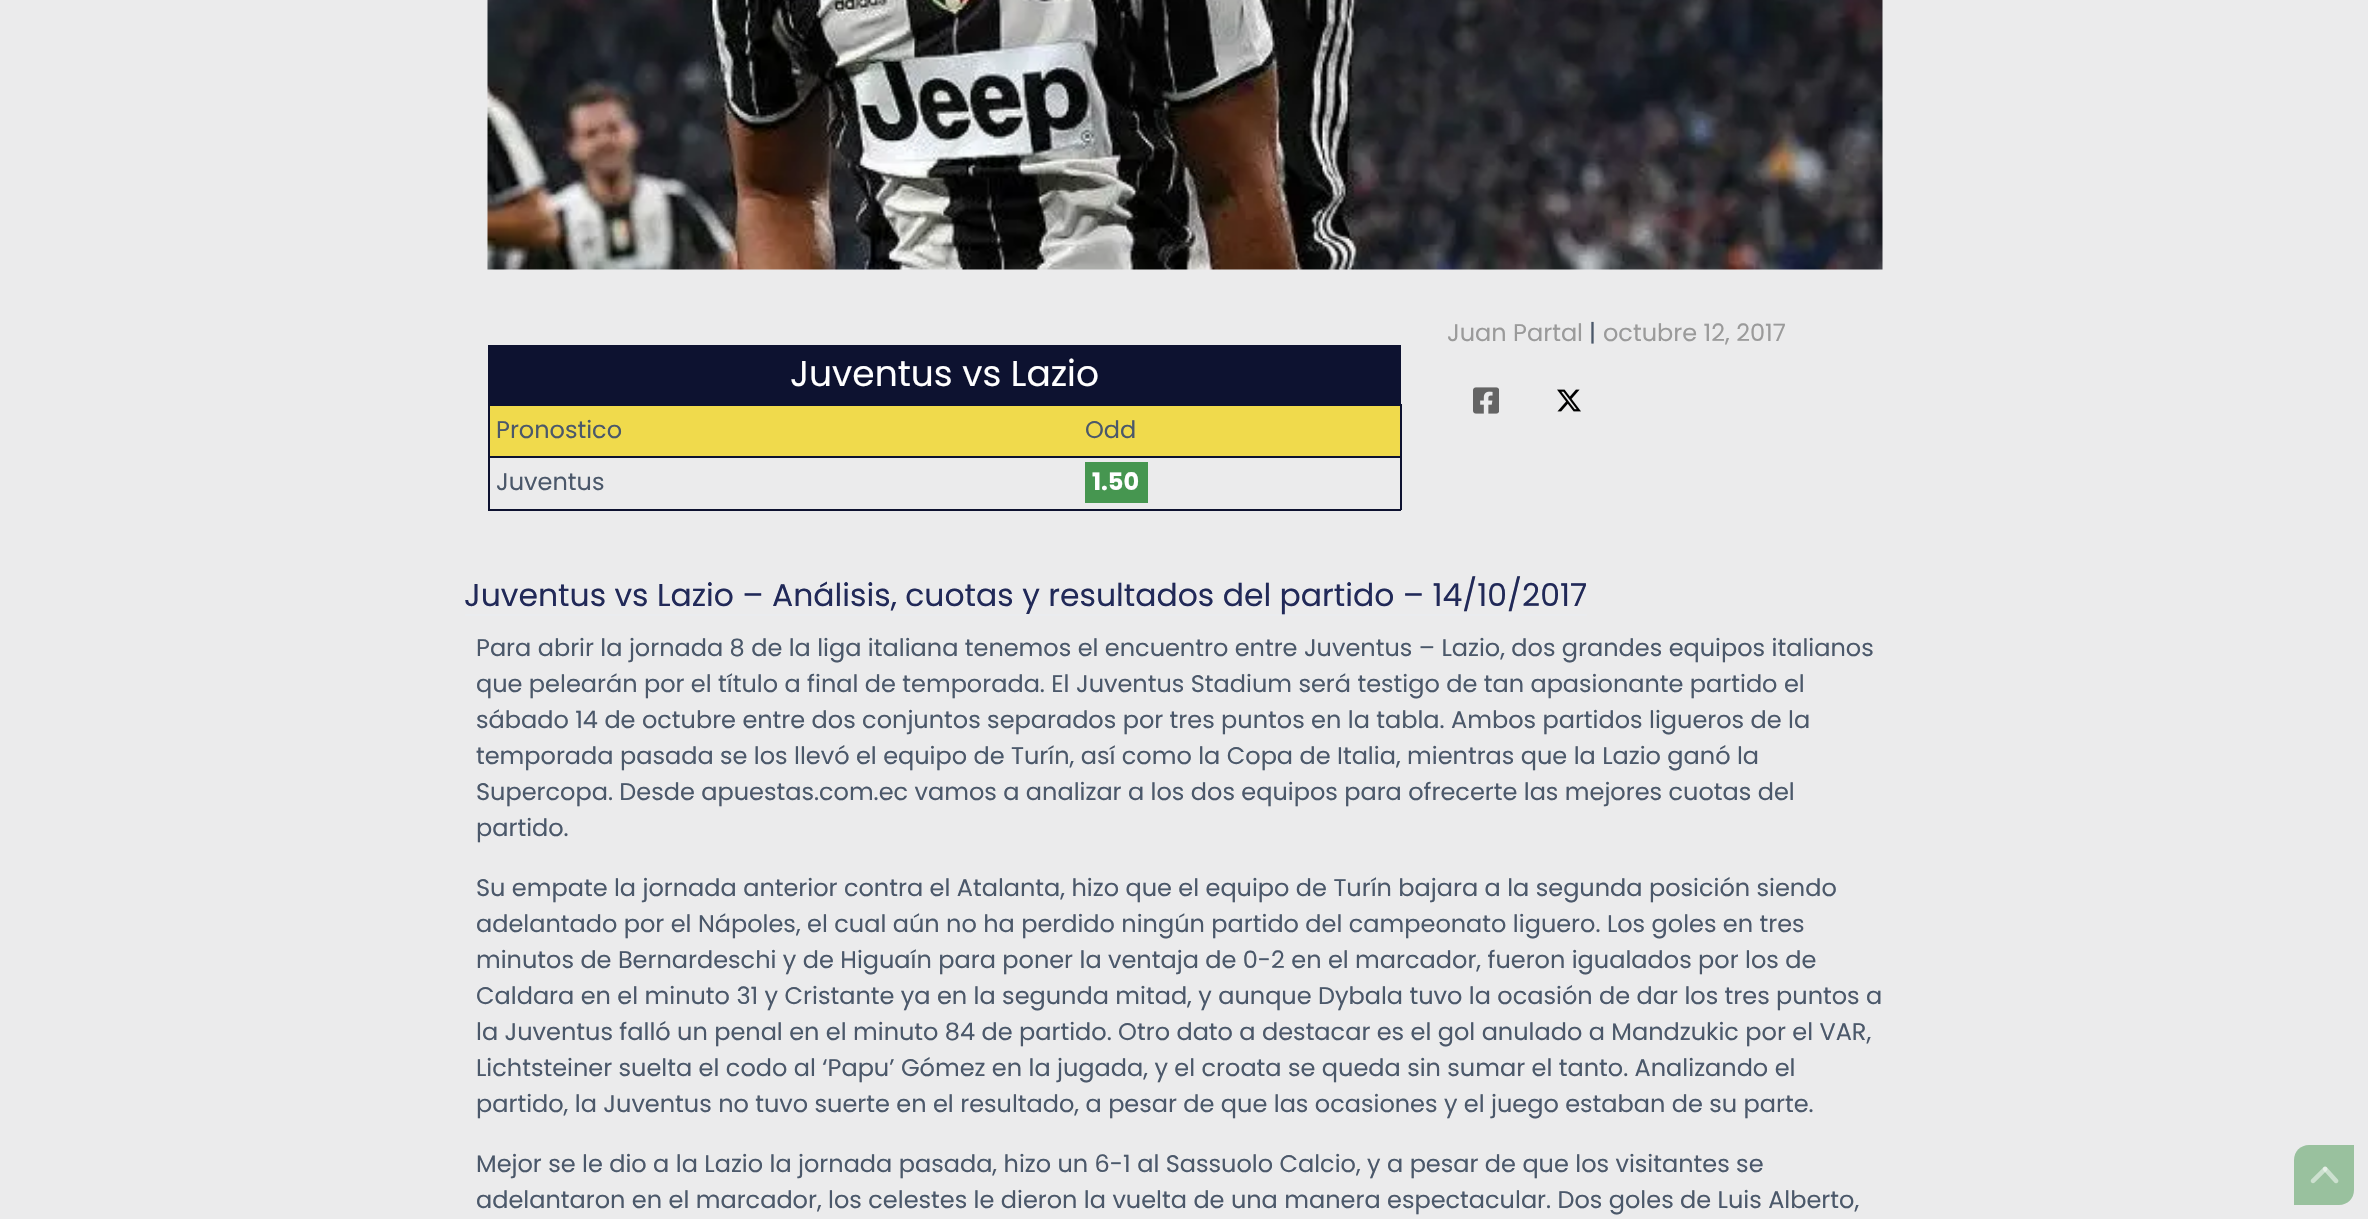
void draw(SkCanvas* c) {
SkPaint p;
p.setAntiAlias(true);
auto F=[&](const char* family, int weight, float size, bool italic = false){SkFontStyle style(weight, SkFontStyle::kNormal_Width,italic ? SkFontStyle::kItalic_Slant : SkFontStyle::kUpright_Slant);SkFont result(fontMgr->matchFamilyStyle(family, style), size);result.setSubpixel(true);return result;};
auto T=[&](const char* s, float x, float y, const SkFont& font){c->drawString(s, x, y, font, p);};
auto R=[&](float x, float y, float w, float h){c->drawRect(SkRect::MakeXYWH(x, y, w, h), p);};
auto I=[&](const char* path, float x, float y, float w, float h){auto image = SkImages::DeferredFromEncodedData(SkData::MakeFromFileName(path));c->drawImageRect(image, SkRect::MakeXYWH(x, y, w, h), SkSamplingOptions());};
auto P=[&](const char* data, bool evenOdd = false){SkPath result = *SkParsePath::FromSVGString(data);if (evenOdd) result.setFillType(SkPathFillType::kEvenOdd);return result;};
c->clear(0xffebebec);
I("1.png",487,0,1396,270);
auto f1 = F("Poppins",400,24);
p.setColor(0xff9a9a9a);
T("Juan Partal",1447,341,f1);
p.setColor(0xff4b586a);
T("|",1589,341,f1);
p.setColor(0xff9a9a9a);
T("octubre 12, 2017",1603,341,f1);
I("2.png",1473,387,26,27);
I("3.png",1557,389,24,23);
p.setColor(0xff0d1230);
R(488,345,913,61);
auto f2 = F("Poppins",400,36);
p.setColor(0xffffffff);
T("Juventus vs Lazio",790,386,f2);
p.setColor(0xff0d1230);
R(1400,404,2,106);
R(488,509,913,2);
R(488,404,2,106);
p.setColor(0xfff0da4c);
R(490,406,910,50);
p.setColor(0xff4b586a);
T("Pronostico",496,438,f1);
p.setColor(0xff0d1230);
R(488,456,913,2);
p.setColor(0xff4b586a);
T("Odd",1085,438,f1);
T("Juventus",496,490,f1);
p.setColor(0xff469650);
R(1085,462,63,41);
auto f3 = F("Poppins",700,24);
p.setColor(0xffffffff);
T("1.50",1092,490,f3);
p.setColor(0xffeaecef);
R(465,614,1122,2);
auto f4 = F("Poppins",400,31.45);
p.setColor(0xff212958);
T("Juventus vs Lazio – Análisis, cuotas y resultados del partido – 14/10/2017",464,606,f4);
p.setColor(0xff4b586a);
T("Para abrir la jornada 8 de la liga italiana tenemos el encuentro entre Juventus – Lazio, dos grandes equipos italianos",476,656,f1);
T("que pelearán por el título a final de temporada. El Juventus Stadium será testigo de tan apasionante partido el",476,692,f1);
T("sábado 14 de octubre entre dos conjuntos separados por tres puntos en la tabla. Ambos partidos ligueros de la",476,728,f1);
T("temporada pasada se los llevó el equipo de Turín, así como la Copa de Italia, mientras que la Lazio ganó la",476,764,f1);
T("Supercopa. Desde apuestas.com.ec vamos a analizar a los dos equipos para ofrecerte las mejores cuotas del",476,800,f1);
T("partido.",476,836,f1);
T("Su empate la jornada anterior contra el Atalanta, hizo que el equipo de Turín bajara a la segunda posición siendo",476,896,f1);
T("adelantado por el Nápoles, el cual aún no ha perdido ningún partido del campeonato liguero. Los goles en tres",476,932,f1);
T("minutos de Bernardeschi y de Higuaín para poner la ventaja de 0-2 en el marcador, fueron igualados por los de",476,968,f1);
T("Caldara en el minuto 31 y Cristante ya en la segunda mitad, y aunque Dybala tuvo la ocasión de dar los tres puntos a",476,1004,f1);
T("la Juventus falló un penal en el minuto 84 de partido. Otro dato a destacar es el gol anulado a Mandzukic por el VAR,",476,1040,f1);
T("Lichtsteiner suelta el codo al ‘Papu’ Gómez en la jugada, y el croata se queda sin sumar el tanto. Analizando el",476,1076,f1);
T("partido, la Juventus no tuvo suerte en el resultado, a pesar de que las ocasiones y el juego estaban de su parte.",476,1112,f1);
T("Mejor se le dio a la Lazio la jornada pasada, hizo un 6-1 al Sassuolo Calcio, y a pesar de que los visitantes se",476,1172,f1);
T("adelantaron en el marcador, los celestes le dieron la vuelta de una manera espectacular. Dos goles de Luis Alberto,",476,1208,f1);
p.setColor(0xff99c19e);
c->drawPath(P("M2309 1145h45v45c0 8.5-6.5 15-15 15h-45v-45c0-8.5 6.5-15 15-15z"),p);
I("4.png",2310,1166,29,18);
}
